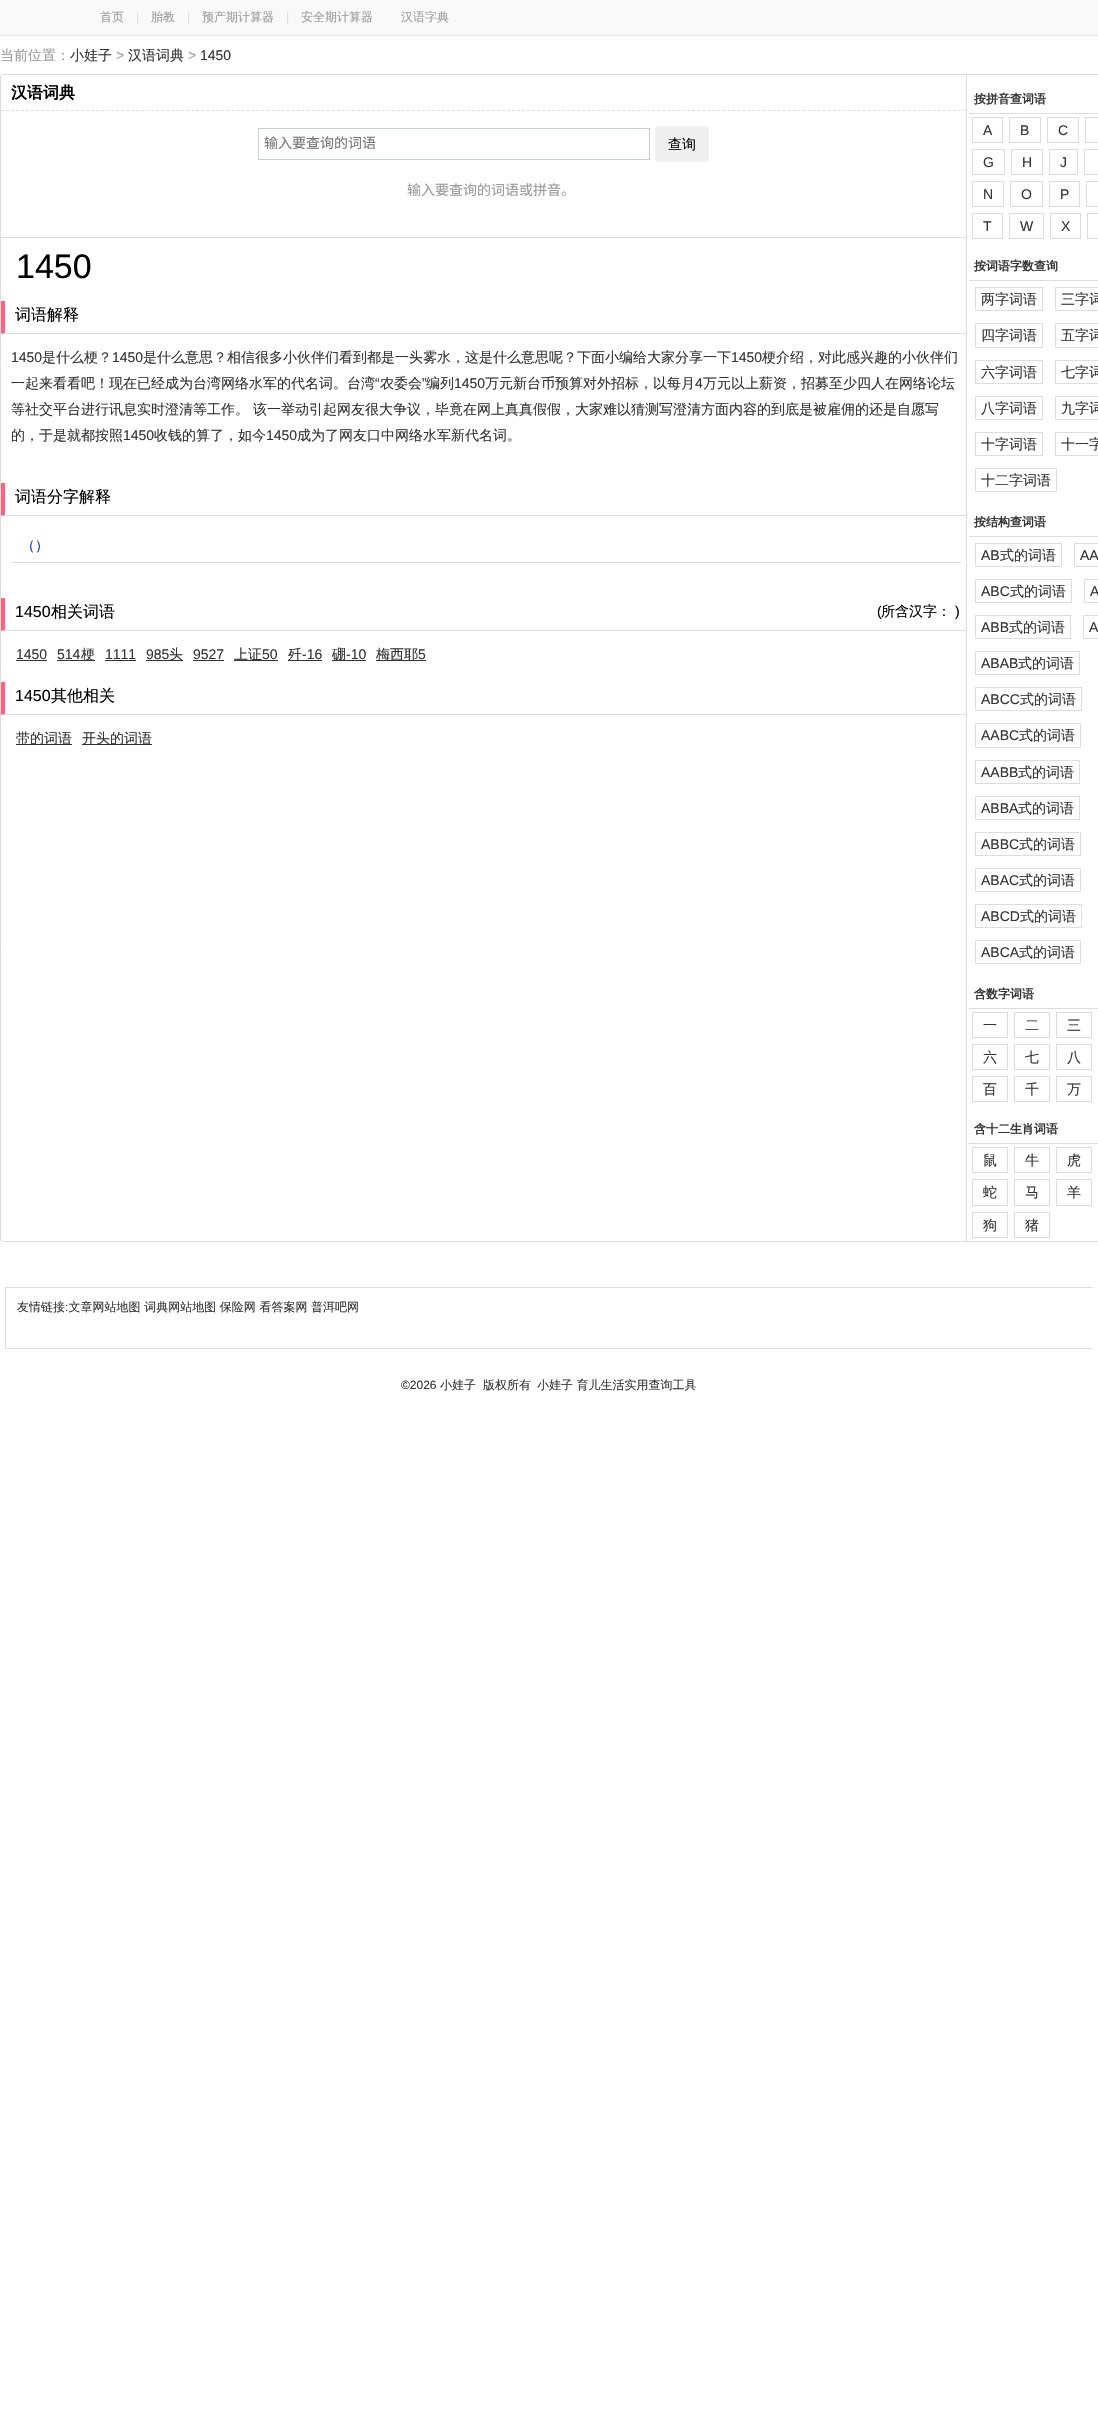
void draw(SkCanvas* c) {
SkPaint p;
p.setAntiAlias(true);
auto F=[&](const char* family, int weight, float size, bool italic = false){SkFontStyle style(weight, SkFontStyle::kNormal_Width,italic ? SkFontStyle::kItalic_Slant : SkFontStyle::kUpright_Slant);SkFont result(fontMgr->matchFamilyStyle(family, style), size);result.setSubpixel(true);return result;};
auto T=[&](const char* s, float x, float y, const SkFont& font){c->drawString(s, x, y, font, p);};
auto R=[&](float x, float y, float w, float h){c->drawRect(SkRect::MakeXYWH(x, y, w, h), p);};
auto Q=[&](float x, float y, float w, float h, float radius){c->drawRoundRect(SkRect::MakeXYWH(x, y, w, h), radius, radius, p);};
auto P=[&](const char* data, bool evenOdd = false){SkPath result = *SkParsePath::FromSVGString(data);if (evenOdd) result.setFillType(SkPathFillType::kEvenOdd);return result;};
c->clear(0xffffffff);
p.setColor(0xfff9f9f9);
R(0,0,1098,35);
p.setColor(0xffe5e5e5);
R(0,35,1098,1);
auto f1 = F("WenQuanYi Zen Hei",500,12);
p.setColor(0xff999999);
T("首页",100,21,f1);
auto f2 = F("Liberation Sans",400,12);
p.setColor(0xffdddddd);
T("|",136,21,f2);
p.setColor(0xff999999);
T("胎教",151,21,f1);
p.setColor(0xffdddddd);
T("|",187,21,f2);
p.setColor(0xff999999);
T("预产期计算器",202,21,f1);
p.setColor(0xffdddddd);
T("|",286,21,f2);
p.setColor(0xff999999);
T("安全期计算器",301,21,f1);
T("汉语字典",401,21,f1);
auto f3 = F("WenQuanYi Zen Hei",500,14);
T("当前位置：",0,60,f3);
p.setColor(0xff333333);
T("小娃子",70,60,f3);
auto f4 = F("Liberation Sans",400,14);
p.setColor(0xff999999);
T(">",116,60,f4);
p.setColor(0xff333333);
T("汉语词典",128,60,f3);
p.setColor(0xff999999);
T(">",188,60,f4);
p.setColor(0xff333333);
T("1450",200,60,f4);
p.setStroke(true);
p.setStrokeWidth(1);
p.setColor(0xffdddddd);
c->drawRoundRect(SkRect::MakeXYWH(.5,74.5,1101,1167),2.5,2.5,p);
p.setStroke(false);
R(966,75,1,1166);
c->save();
c->clipRect(SkRect::MakeXYWH(1,75,965,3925));
p.setStroke(true);
p.setPathEffect(SkDashPathEffect::Make({{3,2.01f}}, 0));
c->drawPath(P("M1 110.5h975"),p);
p.setPathEffect(nullptr);
c->restore();
auto f5 = F("WenQuanYi Zen Hei",700,16);
p.setStroke(false);
p.setColor(0xff000000);
T("汉语词典",11,98,f5);
p.setStroke(true);
p.setColor(0xffc6cede);
c->drawRect(SkRect::MakeXYWH(258.5,128.5,391,31),p);
auto f6 = F("Noto Sans CJK SC",400,14);
p.setStroke(false);
p.setColor(0xff757575);
T("输入要查询的词语",264,148,f6);
p.setColor(0xffefefef);
Q(655,126,54,36,4);
p.setColor(0xff000000);
T("查询",668,149,f3);
p.setColor(0xff999999);
T("输入要查询的词语或拼音。",407,195,f6);
p.setColor(0xffdddddd);
R(1,237,965,1);
auto f7 = F("Liberation Sans",400,34);
p.setColor(0xff000000);
T("1450",16,278,f7);
c->save();
c->clipRect(SkRect::MakeXYWH(1,238,965,528));
p.setColor(0xffdddddd);
c->drawPath(P("M980 334h-979l4-1h975z"),p);
c->restore();
p.setColor(0xfffe6281);
c->drawPath(P("M1 334v-33h4v32z"),p);
auto f8 = F("WenQuanYi Zen Hei",500,16);
p.setColor(0xff000000);
T("词语解释",15,320,f8);
p.setColor(0xff333333);
T("1450",11,362,f4);
T("是什么梗？",42,362,f3);
T("1450",112,362,f4);
T("是什么意思？相信很多小伙伴们看到都是一头雾水，这是什么意思呢？下面小编给大家分享一下",143,362,f3);
T("1450",731,362,f4);
T("梗介绍，对此感兴趣的小伙伴们",762,362,f3);
T("一起来看看吧！现在已经成为台湾网络水军的代名词。台湾",11,388,f3);
T("“",375,388,f4);
T("农委会",380,388,f3);
T("”",422,388,f4);
T("编列",426,388,f3);
T("1450",454,388,f4);
T("万元新台币预算对外招标，以每月",485,388,f3);
T("4",695,388,f4);
T("万元以上薪资，招募至少四人在网络论坛",703,388,f3);
T("等社交平台进行讯息实时澄清等工作。",11,414,f3);
T("该一举动引起网友很大争议，毕竟在网上真真假假，大家难以猜测写澄清方面内容的到底是被雇佣的还是自愿写",253,414,f3);
T("的，于是就都按照",11,440,f3);
T("1450",123,440,f4);
T("收钱的算了，如今",154,440,f3);
T("1450",266,440,f4);
T("成为了网友口中网络水军新代名词。",297,440,f3);
c->save();
c->clipRect(SkRect::MakeXYWH(1,238,965,528));
p.setColor(0xffdddddd);
c->drawPath(P("M980 516h-979l4-1h975z"),p);
c->restore();
p.setColor(0xfffe6281);
c->drawPath(P("M1 516v-33h4v32z"),p);
p.setColor(0xff000000);
T("词语分字解释",15,502,f8);
p.setColor(0xffdddddd);
R(11,562,950,1);
p.setColor(0xff0033cc);
T("（）",21,550,f3);
c->save();
c->clipRect(SkRect::MakeXYWH(1,238,965,528));
p.setColor(0xffdddddd);
c->drawPath(P("M980 631h-979l4-1h975z"),p);
c->restore();
p.setColor(0xfffe6281);
c->drawPath(P("M1 631v-33h4v32z"),p);
auto f9 = F("Liberation Sans",400,16);
p.setColor(0xff000000);
T("1450",15,617,f9);
T("相关词语",51,617,f8);
T("(",877,616,f4);
T("所含汉字：",881,616,f3);
T(")",955,616,f4);
p.setColor(0xff333333);
T("1450",16,659,f4);
R(16,660,31,1);
T("514",57,659,f4);
R(57,660,38,1);
T("梗",81,659,f3);
T("1111",105,659,f4);
R(105,660,31,1);
T("985",146,659,f4);
R(146,660,37,1);
T("头",169,659,f3);
T("9527",193,659,f4);
R(193,660,31,1);
T("上证",234,659,f3);
T("50",262,659,f4);
R(234,660,44,1);
R(288,660,34,1);
T("歼",288,659,f3);
T("-16",302,659,f4);
R(332,660,34,1);
T("硼",332,659,f3);
T("-10",346,659,f4);
R(376,660,50,1);
T("梅西耶",376,659,f3);
T("5",418,659,f4);
c->save();
c->clipRect(SkRect::MakeXYWH(1,238,965,528));
p.setColor(0xffdddddd);
c->drawPath(P("M980 715h-979l4-1h975z"),p);
c->restore();
p.setColor(0xfffe6281);
c->drawPath(P("M1 715v-33h4v32z"),p);
p.setColor(0xff000000);
T("1450",15,701,f9);
T("其他相关",51,701,f8);
p.setColor(0xff333333);
R(16,744,56,1);
T("带的词语",16,743,f3);
R(82,744,70,1);
T("开头的词语",82,743,f3);
p.setColor(0xffdddddd);
R(969,113,129,1);
auto f10 = F("WenQuanYi Zen Hei",700,12);
p.setColor(0xff333333);
T("按拼音查词语",974,103,f10);
p.setStroke(true);
p.setColor(0xffdddddd);
c->drawRect(SkRect::MakeXYWH(972.5,117.5,30,25),p);
p.setStroke(false);
p.setColor(0xff333333);
T("A",983,135,f4);
p.setStroke(true);
p.setColor(0xffdddddd);
c->drawRect(SkRect::MakeXYWH(1009.5,117.5,31,25),p);
p.setStroke(false);
p.setColor(0xff333333);
T("B",1020,135,f4);
p.setStroke(true);
p.setColor(0xffdddddd);
c->drawRect(SkRect::MakeXYWH(1047.5,117.5,31,25),p);
p.setStroke(false);
p.setColor(0xff333333);
T("C",1058,135,f4);
p.setStroke(true);
p.setColor(0xffdddddd);
c->drawRect(SkRect::MakeXYWH(1085.5,117.5,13,25),p);
c->drawRect(SkRect::MakeXYWH(972.5,149.5,32,25),p);
p.setStroke(false);
p.setColor(0xff333333);
T("G",983,167,f4);
p.setStroke(true);
p.setColor(0xffdddddd);
c->drawRect(SkRect::MakeXYWH(1011.5,149.5,31,25),p);
p.setStroke(false);
p.setColor(0xff333333);
T("H",1022,167,f4);
p.setStroke(true);
p.setColor(0xffdddddd);
c->drawRect(SkRect::MakeXYWH(1049.5,149.5,28,25),p);
p.setStroke(false);
p.setColor(0xff333333);
T("J",1060,167,f4);
p.setStroke(true);
p.setColor(0xffdddddd);
c->drawRect(SkRect::MakeXYWH(1084.5,149.5,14,25),p);
c->drawRect(SkRect::MakeXYWH(972.5,181.5,31,25),p);
p.setStroke(false);
p.setColor(0xff333333);
T("N",983,199,f4);
p.setStroke(true);
p.setColor(0xffdddddd);
c->drawRect(SkRect::MakeXYWH(1010.5,181.5,32,25),p);
p.setStroke(false);
p.setColor(0xff333333);
T("O",1021,199,f4);
p.setStroke(true);
p.setColor(0xffdddddd);
c->drawRect(SkRect::MakeXYWH(1049.5,181.5,30,25),p);
p.setStroke(false);
p.setColor(0xff333333);
T("P",1060,199,f4);
p.setStroke(true);
p.setColor(0xffdddddd);
c->drawRect(SkRect::MakeXYWH(1086.5,181.5,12,25),p);
c->drawRect(SkRect::MakeXYWH(972.5,213.5,30,25),p);
p.setStroke(false);
p.setColor(0xff333333);
T("T",983,231,f4);
p.setStroke(true);
p.setColor(0xffdddddd);
c->drawRect(SkRect::MakeXYWH(1009.5,213.5,34,25),p);
p.setStroke(false);
p.setColor(0xff333333);
T("W",1020,231,f4);
p.setStroke(true);
p.setColor(0xffdddddd);
c->drawRect(SkRect::MakeXYWH(1050.5,213.5,30,25),p);
p.setStroke(false);
p.setColor(0xff333333);
T("X",1061,231,f4);
p.setStroke(true);
p.setColor(0xffdddddd);
c->drawRect(SkRect::MakeXYWH(1087.5,213.5,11,25),p);
p.setStroke(false);
R(969,280,129,1);
p.setColor(0xff333333);
T("按词语字数查询",974,270,f10);
p.setStroke(true);
p.setColor(0xffdddddd);
c->drawRect(SkRect::MakeXYWH(975.5,287.5,67,23),p);
p.setStroke(false);
p.setColor(0xff333333);
T("两字词语",981,304,f3);
p.setStroke(true);
p.setColor(0xffdddddd);
c->drawRect(SkRect::MakeXYWH(1055.5,287.5,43,23),p);
p.setStroke(false);
p.setColor(0xff333333);
T("三字词",1061,304,f3);
p.setStroke(true);
p.setColor(0xffdddddd);
c->drawRect(SkRect::MakeXYWH(975.5,323.5,67,24),p);
p.setStroke(false);
p.setColor(0xff333333);
T("四字词语",981,340,f3);
p.setStroke(true);
p.setColor(0xffdddddd);
c->drawRect(SkRect::MakeXYWH(1055.5,323.5,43,24),p);
p.setStroke(false);
p.setColor(0xff333333);
T("五字词",1061,340,f3);
p.setStroke(true);
p.setColor(0xffdddddd);
c->drawRect(SkRect::MakeXYWH(975.5,360.5,67,23),p);
p.setStroke(false);
p.setColor(0xff333333);
T("六字词语",981,377,f3);
p.setStroke(true);
p.setColor(0xffdddddd);
c->drawRect(SkRect::MakeXYWH(1055.5,360.5,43,23),p);
p.setStroke(false);
p.setColor(0xff333333);
T("七字词",1061,377,f3);
p.setStroke(true);
p.setColor(0xffdddddd);
c->drawRect(SkRect::MakeXYWH(975.5,396.5,67,23),p);
p.setStroke(false);
p.setColor(0xff333333);
T("八字词语",981,413,f3);
p.setStroke(true);
p.setColor(0xffdddddd);
c->drawRect(SkRect::MakeXYWH(1055.5,396.5,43,23),p);
p.setStroke(false);
p.setColor(0xff333333);
T("九字词",1061,413,f3);
p.setStroke(true);
p.setColor(0xffdddddd);
c->drawRect(SkRect::MakeXYWH(975.5,432.5,67,23),p);
p.setStroke(false);
p.setColor(0xff333333);
T("十字词语",981,449,f3);
p.setStroke(true);
p.setColor(0xffdddddd);
c->drawRect(SkRect::MakeXYWH(1055.5,432.5,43,23),p);
p.setStroke(false);
p.setColor(0xff333333);
T("十一字",1061,449,f3);
p.setStroke(true);
p.setColor(0xffdddddd);
c->drawRect(SkRect::MakeXYWH(975.5,468.5,81,23),p);
p.setStroke(false);
p.setColor(0xff333333);
T("十二字词语",981,485,f3);
p.setColor(0xffdddddd);
R(969,536,129,1);
p.setColor(0xff333333);
T("按结构查词语",974,526,f10);
p.setStroke(true);
p.setColor(0xffdddddd);
c->drawRect(SkRect::MakeXYWH(975.5,543.5,86,23),p);
p.setStroke(false);
p.setColor(0xff333333);
T("AB",981,560,f4);
T("式的词语",1000,560,f3);
p.setStroke(true);
p.setColor(0xffdddddd);
c->drawRect(SkRect::MakeXYWH(1074.5,543.5,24,23),p);
p.setStroke(false);
p.setColor(0xff333333);
T("AA",1080,560,f4);
p.setStroke(true);
p.setColor(0xffdddddd);
c->drawRect(SkRect::MakeXYWH(975.5,579.5,96,23),p);
p.setStroke(false);
p.setColor(0xff333333);
T("ABC",981,596,f4);
T("式的词语",1010,596,f3);
p.setStroke(true);
p.setColor(0xffdddddd);
c->drawRect(SkRect::MakeXYWH(1084.5,579.5,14,23),p);
p.setStroke(false);
p.setColor(0xff333333);
T("A",1090,596,f4);
p.setStroke(true);
p.setColor(0xffdddddd);
c->drawRect(SkRect::MakeXYWH(975.5,615.5,95,23),p);
p.setStroke(false);
p.setColor(0xff333333);
T("ABB",981,632,f4);
T("式的词语",1009,632,f3);
p.setStroke(true);
p.setColor(0xffdddddd);
c->drawRect(SkRect::MakeXYWH(1083.5,615.5,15,23),p);
p.setStroke(false);
p.setColor(0xff333333);
T("A",1089,632,f4);
p.setStroke(true);
p.setColor(0xffdddddd);
c->drawRect(SkRect::MakeXYWH(975.5,651.5,104,23),p);
p.setStroke(false);
p.setColor(0xff333333);
T("ABAB",981,668,f4);
T("式的词语",1018,668,f3);
p.setStroke(true);
p.setColor(0xffdddddd);
c->drawRect(SkRect::MakeXYWH(975.5,687.5,106,23),p);
p.setStroke(false);
p.setColor(0xff333333);
T("ABCC",981,704,f4);
T("式的词语",1020,704,f3);
p.setStroke(true);
p.setColor(0xffdddddd);
c->drawRect(SkRect::MakeXYWH(975.5,723.5,105,24),p);
p.setStroke(false);
p.setColor(0xff333333);
T("AABC",981,740,f4);
T("式的词语",1019,740,f3);
p.setStroke(true);
p.setColor(0xffdddddd);
c->drawRect(SkRect::MakeXYWH(975.5,760.5,104,23),p);
p.setStroke(false);
p.setColor(0xff333333);
T("AABB",981,777,f4);
T("式的词语",1018,777,f3);
p.setStroke(true);
p.setColor(0xffdddddd);
c->drawRect(SkRect::MakeXYWH(975.5,796.5,104,23),p);
p.setStroke(false);
p.setColor(0xff333333);
T("ABBA",981,813,f4);
T("式的词语",1018,813,f3);
p.setStroke(true);
p.setColor(0xffdddddd);
c->drawRect(SkRect::MakeXYWH(975.5,832.5,105,23),p);
p.setStroke(false);
p.setColor(0xff333333);
T("ABBC",981,849,f4);
T("式的词语",1019,849,f3);
p.setStroke(true);
p.setColor(0xffdddddd);
c->drawRect(SkRect::MakeXYWH(975.5,868.5,105,23),p);
p.setStroke(false);
p.setColor(0xff333333);
T("ABAC",981,885,f4);
T("式的词语",1019,885,f3);
p.setStroke(true);
p.setColor(0xffdddddd);
c->drawRect(SkRect::MakeXYWH(975.5,904.5,106,23),p);
p.setStroke(false);
p.setColor(0xff333333);
T("ABCD",981,921,f4);
T("式的词语",1020,921,f3);
p.setStroke(true);
p.setColor(0xffdddddd);
c->drawRect(SkRect::MakeXYWH(975.5,940.5,105,23),p);
p.setStroke(false);
p.setColor(0xff333333);
T("ABCA",981,957,f4);
T("式的词语",1019,957,f3);
p.setColor(0xffdddddd);
R(969,1008,129,1);
p.setColor(0xff333333);
T("含数字词语",974,998,f10);
p.setStroke(true);
p.setColor(0xffdddddd);
c->drawRect(SkRect::MakeXYWH(972.5,1012.5,35,25),p);
p.setStroke(false);
p.setColor(0xff333333);
T("一",983,1030,f3);
p.setStroke(true);
p.setColor(0xffdddddd);
c->drawRect(SkRect::MakeXYWH(1014.5,1012.5,35,25),p);
p.setStroke(false);
p.setColor(0xff333333);
T("二",1025,1030,f3);
p.setStroke(true);
p.setColor(0xffdddddd);
c->drawRect(SkRect::MakeXYWH(1056.5,1012.5,35,25),p);
p.setStroke(false);
p.setColor(0xff333333);
T("三",1067,1030,f3);
p.setStroke(true);
p.setColor(0xffdddddd);
c->drawRect(SkRect::MakeXYWH(972.5,1044.5,35,25),p);
p.setStroke(false);
p.setColor(0xff333333);
T("六",983,1062,f3);
p.setStroke(true);
p.setColor(0xffdddddd);
c->drawRect(SkRect::MakeXYWH(1014.5,1044.5,35,25),p);
p.setStroke(false);
p.setColor(0xff333333);
T("七",1025,1062,f3);
p.setStroke(true);
p.setColor(0xffdddddd);
c->drawRect(SkRect::MakeXYWH(1056.5,1044.5,35,25),p);
p.setStroke(false);
p.setColor(0xff333333);
T("八",1067,1062,f3);
p.setStroke(true);
p.setColor(0xffdddddd);
c->drawRect(SkRect::MakeXYWH(972.5,1076.5,35,25),p);
p.setStroke(false);
p.setColor(0xff333333);
T("百",983,1094,f3);
p.setStroke(true);
p.setColor(0xffdddddd);
c->drawRect(SkRect::MakeXYWH(1014.5,1076.5,35,25),p);
p.setStroke(false);
p.setColor(0xff333333);
T("千",1025,1094,f3);
p.setStroke(true);
p.setColor(0xffdddddd);
c->drawRect(SkRect::MakeXYWH(1056.5,1076.5,35,25),p);
p.setStroke(false);
p.setColor(0xff333333);
T("万",1067,1094,f3);
p.setColor(0xffdddddd);
R(969,1143,129,1);
p.setColor(0xff333333);
T("含十二生肖词语",974,1133,f10);
p.setStroke(true);
p.setColor(0xffdddddd);
c->drawRect(SkRect::MakeXYWH(972.5,1147.5,35,25),p);
p.setStroke(false);
p.setColor(0xff333333);
T("鼠",983,1165,f3);
p.setStroke(true);
p.setColor(0xffdddddd);
c->drawRect(SkRect::MakeXYWH(1014.5,1147.5,35,25),p);
p.setStroke(false);
p.setColor(0xff333333);
T("牛",1025,1165,f3);
p.setStroke(true);
p.setColor(0xffdddddd);
c->drawRect(SkRect::MakeXYWH(1056.5,1147.5,35,25),p);
p.setStroke(false);
p.setColor(0xff333333);
T("虎",1067,1165,f3);
p.setStroke(true);
p.setColor(0xffdddddd);
c->drawRect(SkRect::MakeXYWH(972.5,1179.5,35,26),p);
p.setStroke(false);
p.setColor(0xff333333);
T("蛇",983,1197,f3);
p.setStroke(true);
p.setColor(0xffdddddd);
c->drawRect(SkRect::MakeXYWH(1014.5,1179.5,35,26),p);
p.setStroke(false);
p.setColor(0xff333333);
T("马",1025,1197,f3);
p.setStroke(true);
p.setColor(0xffdddddd);
c->drawRect(SkRect::MakeXYWH(1056.5,1179.5,35,26),p);
p.setStroke(false);
p.setColor(0xff333333);
T("羊",1067,1197,f3);
p.setStroke(true);
p.setColor(0xffdddddd);
c->drawRect(SkRect::MakeXYWH(972.5,1212.5,35,25),p);
p.setStroke(false);
p.setColor(0xff333333);
T("狗",983,1230,f3);
p.setStroke(true);
p.setColor(0xffdddddd);
c->drawRect(SkRect::MakeXYWH(1014.5,1212.5,35,25),p);
p.setStroke(false);
p.setColor(0xff333333);
T("猪",1025,1230,f3);
c->save();
c->clipRect(SkRect::MakeXYWH(5,1262,1088,141));
p.setStroke(true);
p.setColor(0xffdddddd);
c->drawRect(SkRect::MakeXYWH(5.5,1287.5,1088,61),p);
c->restore();
p.setStroke(false);
p.setColor(0xff333333);
T("友情链接 文章网站地图 词典网站地图 保险网 看答案网 普洱吧网",17,1311,f1);
T(":",65,1311,f2);
T("©2026",401,1389,f2);
T("小娃子",440,1389,f1);
T("版权所有",483,1389,f1);
T("小娃子 育儿生活实用查询工具",537,1389,f1);
}
